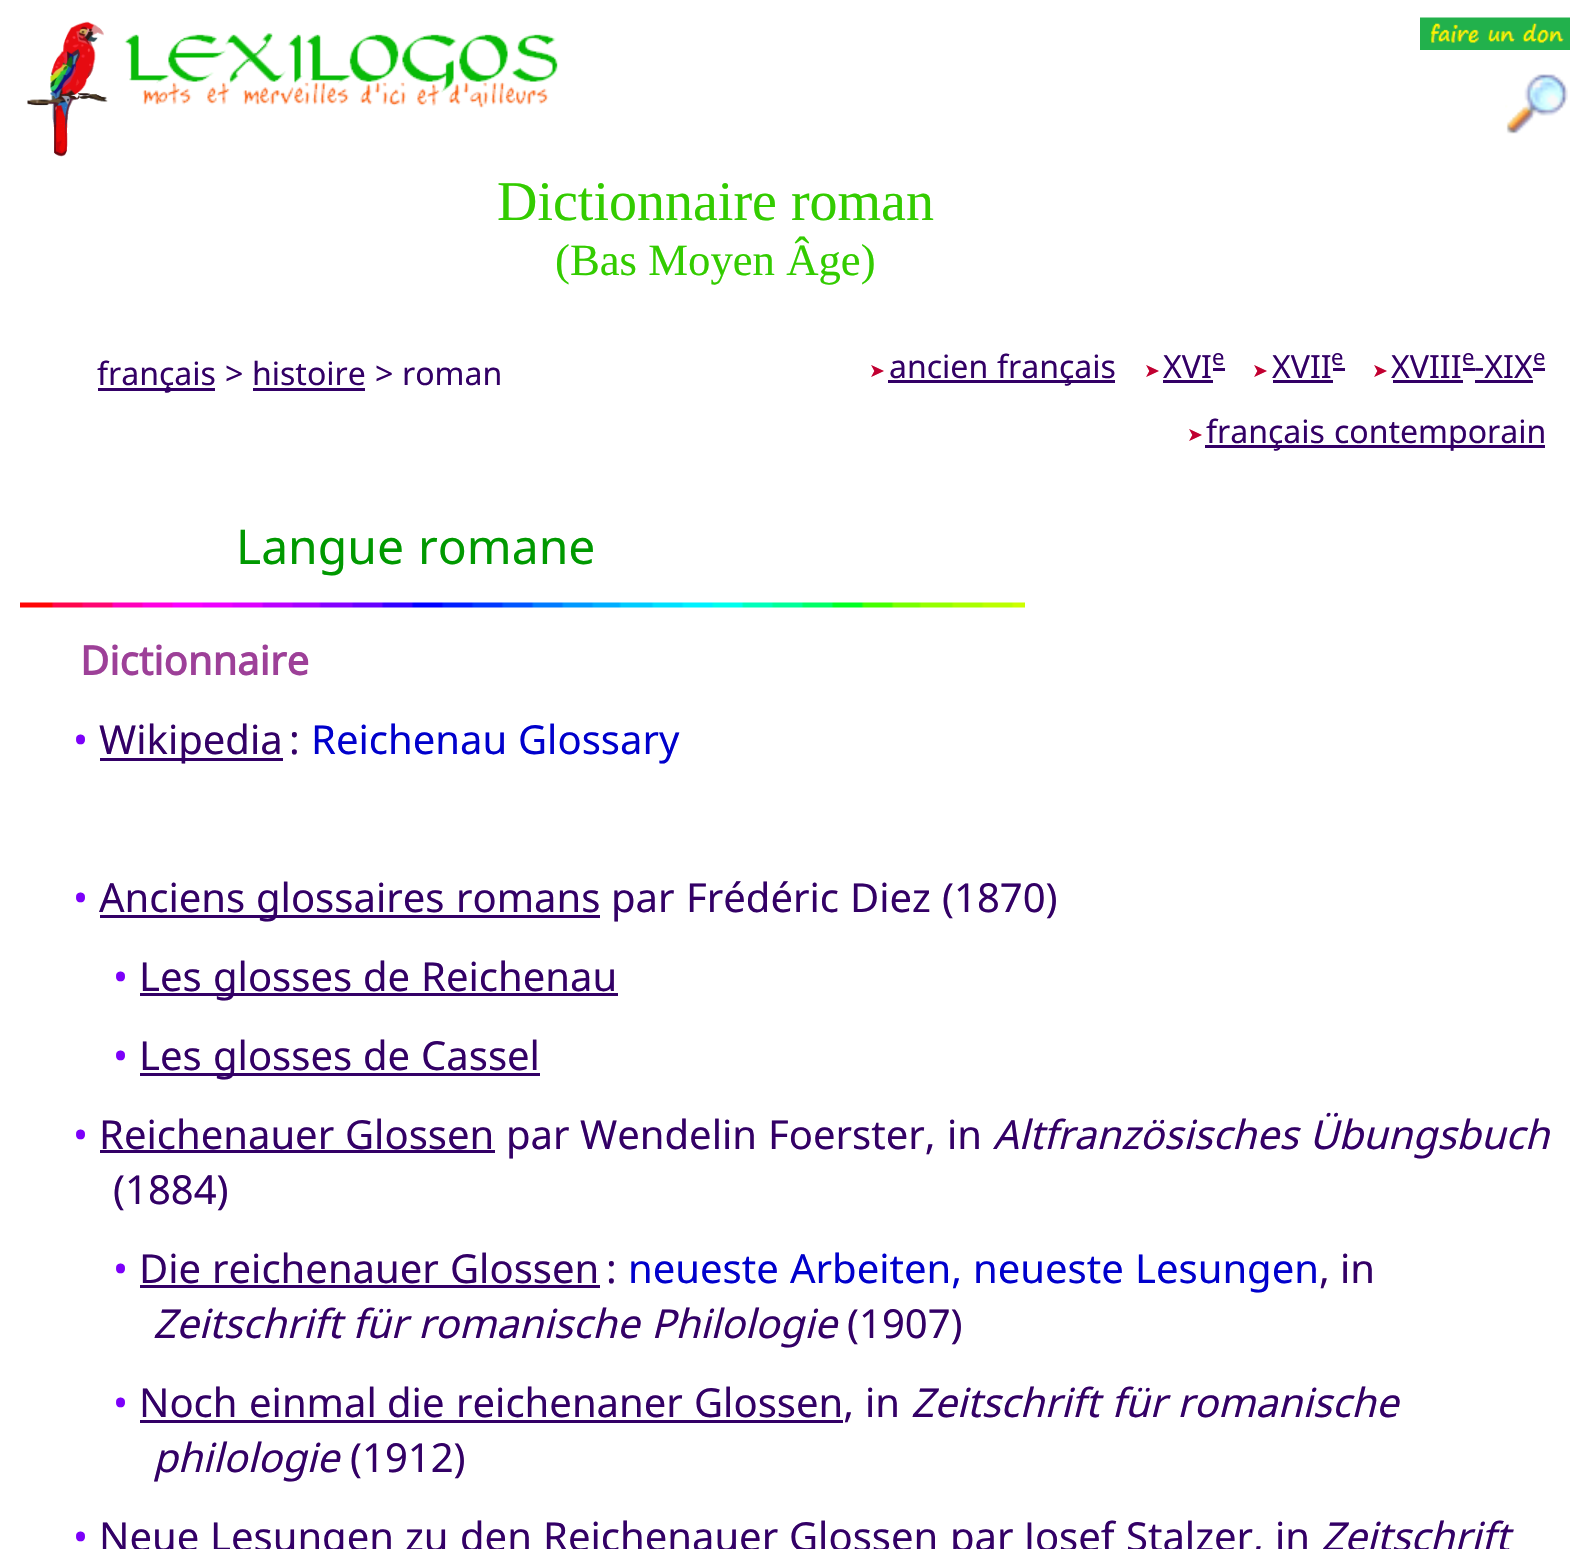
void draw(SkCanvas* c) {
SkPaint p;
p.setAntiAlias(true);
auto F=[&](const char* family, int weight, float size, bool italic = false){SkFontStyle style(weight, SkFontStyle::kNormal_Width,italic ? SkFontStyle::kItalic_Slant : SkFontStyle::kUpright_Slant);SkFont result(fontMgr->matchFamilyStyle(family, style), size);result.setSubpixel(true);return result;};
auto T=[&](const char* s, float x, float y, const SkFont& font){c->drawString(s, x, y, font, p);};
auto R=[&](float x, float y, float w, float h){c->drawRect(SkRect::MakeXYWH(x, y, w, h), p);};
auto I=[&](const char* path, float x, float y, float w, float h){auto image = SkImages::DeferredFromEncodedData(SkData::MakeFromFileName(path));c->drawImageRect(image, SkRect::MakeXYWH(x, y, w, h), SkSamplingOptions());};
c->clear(0xffffffff);
I("1.png",27,21,81,136);
I("2.png",124,33,434,75);
I("3.png",1420,17,150,33);
I("4.png",1505,74,63,60);
auto f1 = F("Liberation Serif",400,56);
p.setColor(0xff33cc00);
T("Dictionnaire roman",497,220,f1);
auto f2 = F("Liberation Serif",400,44.75);
T("(Bas Moyen Âge)",555,275,f2);
p.setColor(0xff330066);
R(98,388,117,3);
auto f3 = F("Noto Sans",400,32);
T("français",97,385,f3);
T(">",225,385,f3);
T("histoire",252,385,f3);
R(253,388,112,3);
T(">",375,385,f3);
T("roman",402,385,f3);
auto f4 = F("DejaVu Sans",400,19);
p.setColor(0xffc10031);
T("➤",869,377,f4);
p.setColor(0xff330066);
T("ancien",889,378,f3);
R(888,380,227,3);
T("français",997,378,f3);
p.setColor(0xffc10031);
T("➤",1144,377,f4);
p.setColor(0xff330066);
T("XVI",1163,378,f3);
R(1163,380,50,3);
R(1213,368,12,3);
auto f5 = F("Noto Sans",400,22);
T("e",1212,365,f5);
p.setColor(0xffc10031);
T("➤",1252,377,f4);
p.setColor(0xff330066);
T("XVII",1272,378,f3);
R(1273,380,60,3);
R(1333,368,12,3);
T("e",1331,365,f5);
p.setColor(0xffc10031);
T("➤",1372,377,f4);
p.setColor(0xff330066);
T("XVIII",1391,378,f3);
R(1393,380,70,3);
T("e",1462,365,f5);
T("-XIX",1474,378,f3);
R(1463,368,12,3);
R(1475,380,58,3);
R(1533,368,12,3);
T("e",1533,365,f5);
p.setColor(0xffc10031);
T("➤",1187,441,f4);
p.setColor(0xff330066);
R(1205,445,340,3);
T("français",1206,443,f3);
T("contemporain",1334,443,f3);
auto f6 = F("Noto Sans",400,48);
p.setColor(0xff009900);
T("Langue",236,564,f6);
T("romane",418,564,f6);
I("5.png",20,602,1005,6);
auto f7 = F("Noto Sans",700,40);
p.setColor(0xff9d4098);
T("Dictionnaire",80,675,f7);
auto f8 = F("Noto Sans",400,40);
p.setColor(0xff7c00f9);
T("•",73,754,f8);
p.setColor(0xff330066);
R(100,758,183,3);
T("Wikipedia",99,754,f8);
T(":",289,754,f8);
p.setColor(0xff0000cc);
T("Reichenau",311,754,f8);
T("Glossary",518,754,f8);
p.setColor(0xff7c00f9);
T("•",73,912,f8);
p.setColor(0xff330066);
T("Anciens",99,912,f8);
R(100,915,500,3);
T("glossaires",256,912,f8);
T("romans",456,912,f8);
T("par",611,912,f8);
T("Frédéric",686,912,f8);
T("Diez",850,912,f8);
T("(1870)",942,912,f8);
p.setColor(0xff7c00f9);
T("•",113,991,f8);
p.setColor(0xff330066);
T("Les",139,991,f8);
R(140,993,478,3);
T("glosses",213,991,f8);
T("de",363,991,f8);
T("Reichenau",421,991,f8);
p.setColor(0xff7c00f9);
T("•",113,1070,f8);
p.setColor(0xff330066);
T("Les",139,1070,f8);
R(140,1073,400,3);
T("glosses",213,1070,f8);
T("de",363,1070,f8);
T("Cassel",421,1070,f8);
p.setColor(0xff7c00f9);
T("•",73,1149,f8);
p.setColor(0xff330066);
T("Reichenauer",99,1149,f8);
R(100,1150,395,3);
T("Glossen",345,1149,f8);
T("par",506,1149,f8);
T("Wendelin",580,1149,f8);
T("Foerster,",768,1149,f8);
T("in",947,1149,f8);
auto f9 = F("Noto Sans",400,40,true);
T("Altfranzösisches",993,1149,f9);
T("Übungsbuch",1309,1149,f9);
T("(1884)",113,1204,f8);
p.setColor(0xff7c00f9);
T("•",113,1283,f8);
p.setColor(0xff330066);
T("Die",139,1283,f8);
R(140,1285,460,3);
T("reichenauer",212,1283,f8);
T("Glossen",450,1283,f8);
T(":",606,1283,f8);
p.setColor(0xff0000cc);
T("neueste",628,1283,f8);
T("Arbeiten,",790,1283,f8);
T("neueste",973,1283,f8);
T("Lesungen",1135,1283,f8);
p.setColor(0xff330066);
T("in",1340,1283,f8);
T(",",1319,1283,f8);
T("Zeitschrift",153,1338,f9);
T("für",352,1338,f9);
T("romanische",418,1338,f9);
T("Philologie",651,1338,f9);
T("(1907)",847,1338,f8);
p.setColor(0xff7c00f9);
T("•",113,1417,f8);
p.setColor(0xff330066);
T("Noch",139,1417,f8);
T("einmal",249,1417,f8);
T("die",387,1417,f8);
T("reichenaner",456,1417,f8);
R(140,1420,703,3);
T("Glossen,",694,1417,f8);
T("in",865,1417,f8);
T("Zeitschrift",911,1417,f9);
T("für",1111,1417,f9);
T("romanische",1177,1417,f9);
T("philologie",153,1472,f9);
T("(1912)",350,1472,f8);
p.setColor(0xff7c00f9);
T("•",73,1551,f8);
p.setColor(0xff330066);
T("Neue",99,1551,f8);
T("Lesungen",210,1551,f8);
T("zu",405,1551,f8);
T("den",460,1551,f8);
T("Reichenauer",543,1551,f8);
T("Glossen",789,1551,f8);
T("par",950,1551,f8);
T("Josef",1024,1551,f8);
T("Stalzer,",1126,1551,f8);
T("in",1275,1551,f8);
T("Zeitschrift",1321,1551,f9);
}
